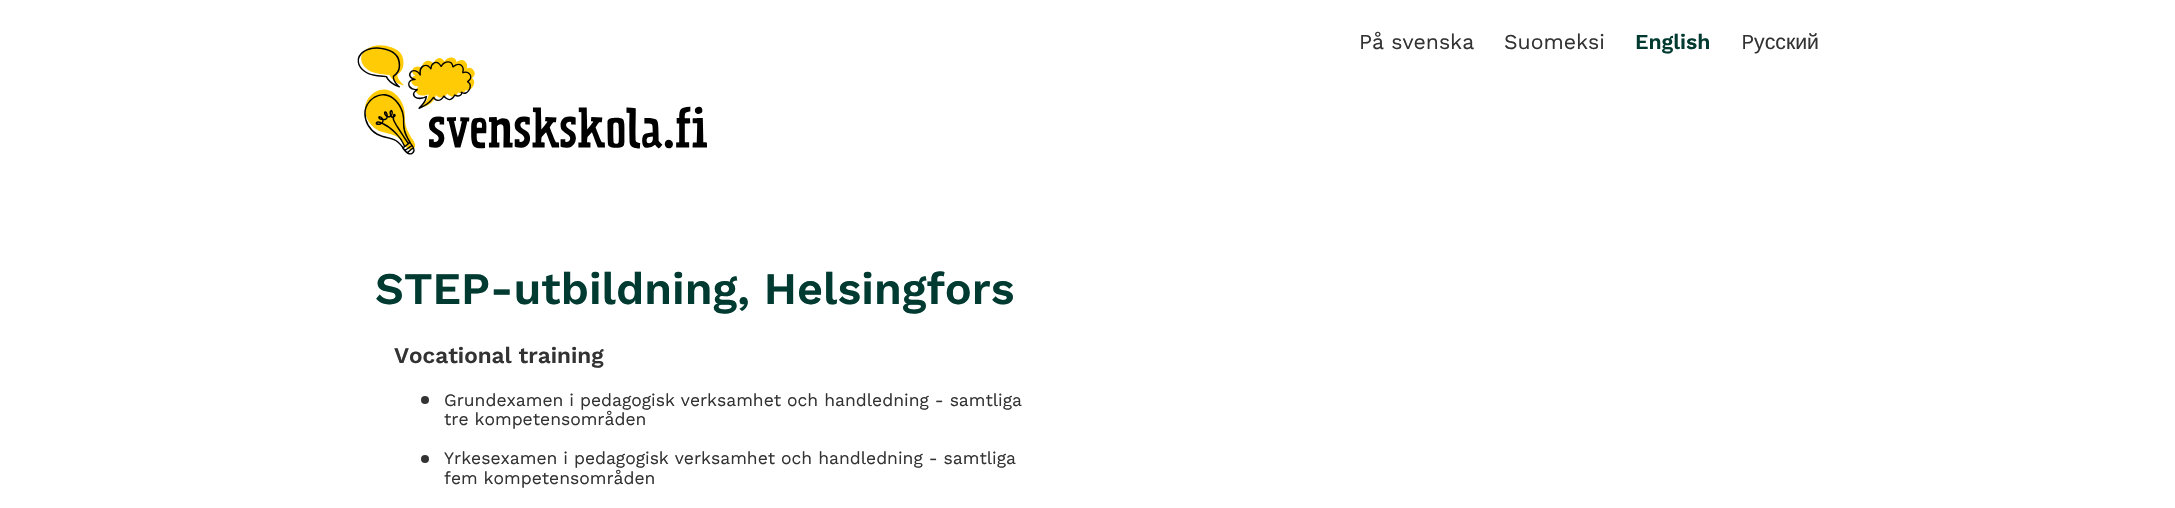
void draw(SkCanvas* c) {
SkPaint p;
p.setAntiAlias(true);
auto F=[&](const char* family, int weight, float size, bool italic = false){SkFontStyle style(weight, SkFontStyle::kNormal_Width,italic ? SkFontStyle::kItalic_Slant : SkFontStyle::kUpright_Slant);SkFont result(fontMgr->matchFamilyStyle(family, style), size);result.setSubpixel(true);return result;};
auto T=[&](const char* s, float x, float y, const SkFont& font){c->drawString(s, x, y, font, p);};
auto I=[&](const char* path, float x, float y, float w, float h){auto image = SkImages::DeferredFromEncodedData(SkData::MakeFromFileName(path));c->drawImageRect(image, SkRect::MakeXYWH(x, y, w, h), SkSamplingOptions());};
c->clear(0xffffffff);
auto f1 = F("Work Sans",400,21.25);
p.setColor(0xff333333);
T("På svenska",1359,49,f1);
T("Suomeksi",1504,49,f1);
auto f2 = F("Work Sans",600,21.25);
p.setColor(0xff003a30);
T("English",1635,49,f2);
p.setColor(0xff333333);
T("P",1741,49,f1);
auto f3 = F("Liberation Sans",400,21.25);
T("усский",1754,49,f3);
I("1.png",357,45,350,110);
auto f4 = F("Work Sans",600,45);
p.setColor(0xff003a30);
T("STEP-utbildning, Helsingfors",375,304,f4);
auto f5 = F("Work Sans",600,22.5);
p.setColor(0xff333333);
T("Vocational training",394,363,f5);
c->drawCircle(425,400,4,p);
auto f6 = F("Work Sans",400,17.5);
T("Grundexamen i pedagogisk verksamhet och handledning - samtliga",444,406,f6);
T("tre kompetensområden",444,425,f6);
c->drawCircle(425,459,4,p);
T("Yrkesexamen i pedagogisk verksamhet och handledning - samtliga",444,464,f6);
T("fem kompetensområden",444,484,f6);
}
